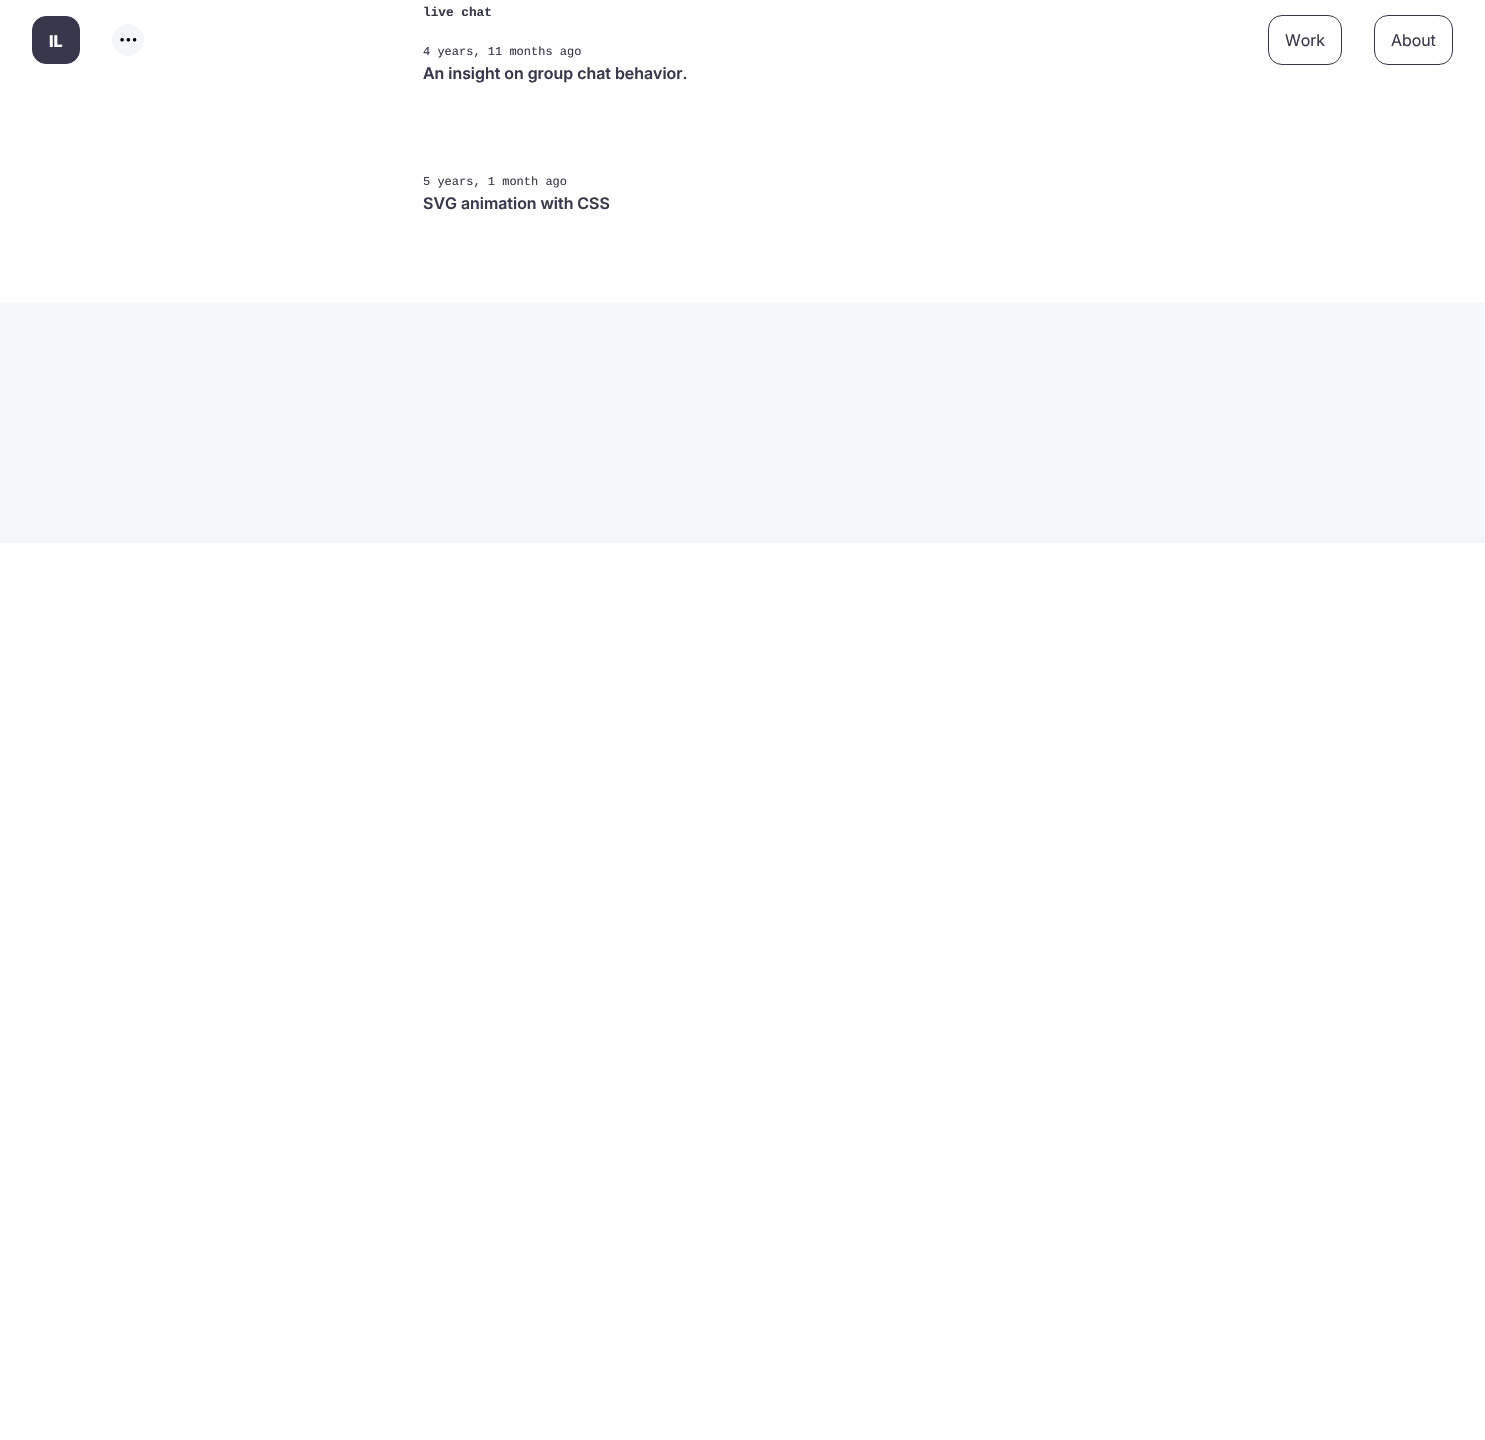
void draw(SkCanvas* c) {
SkPaint p;
p.setAntiAlias(true);
auto F=[&](const char* family, int weight, float size, bool italic = false){SkFontStyle style(weight, SkFontStyle::kNormal_Width,italic ? SkFontStyle::kItalic_Slant : SkFontStyle::kUpright_Slant);SkFont result(fontMgr->matchFamilyStyle(family, style), size);result.setSubpixel(true);return result;};
auto T=[&](const char* s, float x, float y, const SkFont& font){c->drawString(s, x, y, font, p);};
auto R=[&](float x, float y, float w, float h){c->drawRect(SkRect::MakeXYWH(x, y, w, h), p);};
c->clear(0xffffffff);
auto f1 = F("Liberation Mono",700,12.75);
p.setColor(0xff38384c);
T("live chat",423,16,f1);
auto f2 = F("Liberation Mono",400,12);
T("4 years, 11 months ago",423,55,f2);
auto f3 = F("Inter",600,16);
T("An insight on group chat behavior.",423,79,f3);
T("5 years, 1 month ago",423,185,f2);
T("SVG animation with CSS",423,209,f3);
c->drawRoundRect(SkRect::MakeXYWH(32.5,16.5,47,47),13.5,13.5,p);
p.setStroke(true);
p.setStrokeWidth(1);
c->drawRoundRect(SkRect::MakeXYWH(32.5,16.5,47,47),13.5,13.5,p);
auto f4 = F("Inter",800,16);
p.setStroke(false);
p.setColor(0xffffffff);
T("IL",49,47,f4);
p.setColor(0xfff5f6fa);
c->drawCircle(128,40,16,p);
auto f5 = F("Inter",400,11);
p.setColor(0xff000000);
T("•••",119,43,f5);
p.setStroke(true);
p.setColor(0xff38384c);
c->drawRoundRect(SkRect::MakeXYWH(1268.5,15.5,73,49),13.5,13.5,p);
auto f6 = F("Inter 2",400,16);
p.setStroke(false);
T("Work",1285,46,f6);
p.setStroke(true);
c->drawRoundRect(SkRect::MakeXYWH(1374.5,15.5,78,49),13.5,13.5,p);
p.setStroke(false);
T("About",1391,46,f6);
p.setColor(0xfff5f6fa);
R(0,303,1485,240);
}
